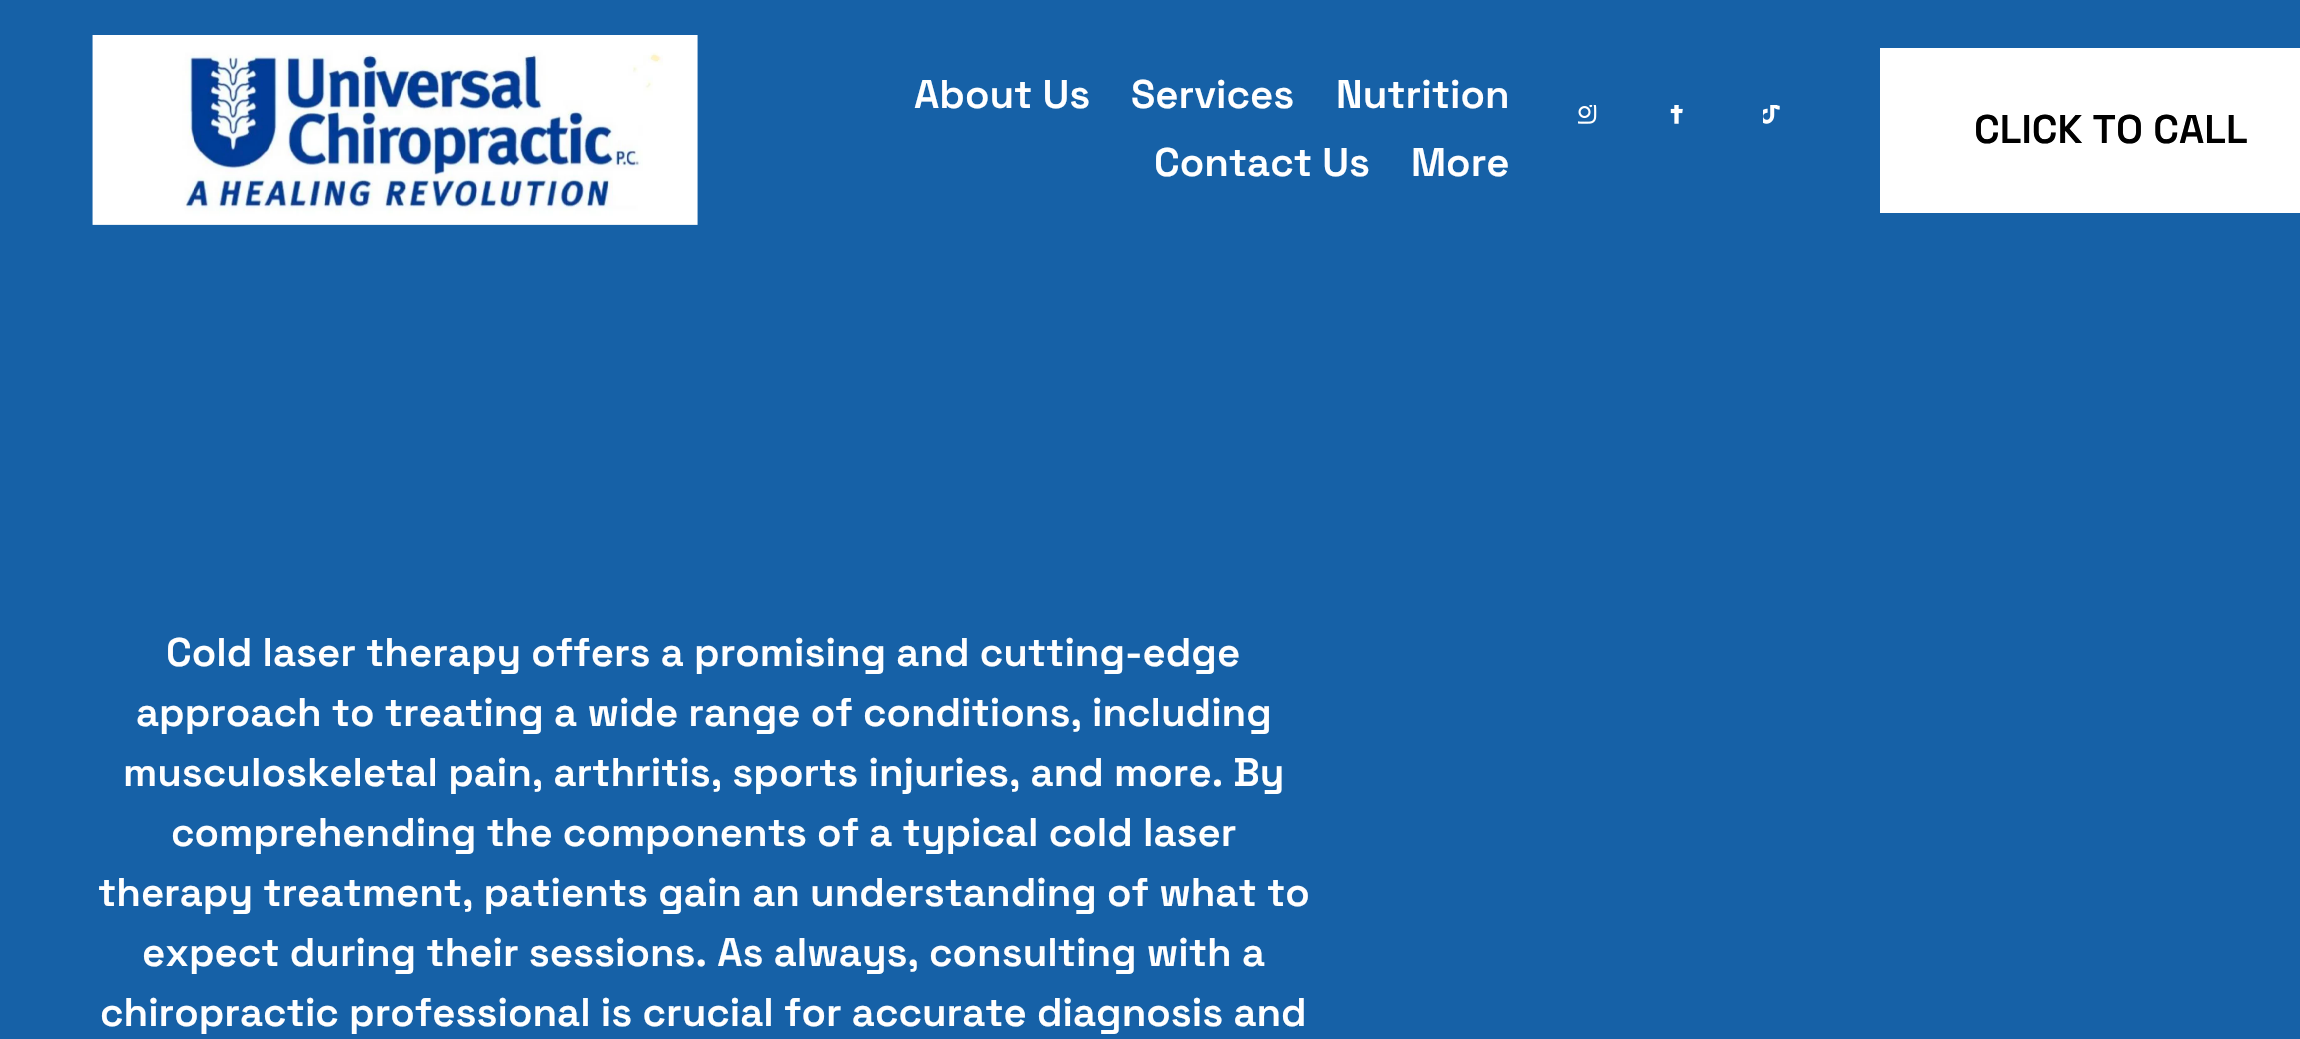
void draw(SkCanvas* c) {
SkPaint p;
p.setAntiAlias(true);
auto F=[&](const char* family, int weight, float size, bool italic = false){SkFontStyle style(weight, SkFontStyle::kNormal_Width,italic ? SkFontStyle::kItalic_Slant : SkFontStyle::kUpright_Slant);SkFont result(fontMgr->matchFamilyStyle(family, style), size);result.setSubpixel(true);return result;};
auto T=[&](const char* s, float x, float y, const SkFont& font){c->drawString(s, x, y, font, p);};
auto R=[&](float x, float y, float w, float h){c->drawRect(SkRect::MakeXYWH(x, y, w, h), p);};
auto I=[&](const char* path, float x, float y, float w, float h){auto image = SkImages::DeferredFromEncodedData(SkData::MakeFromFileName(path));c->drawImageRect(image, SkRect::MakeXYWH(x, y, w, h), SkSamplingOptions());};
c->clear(0xff1661a7);
I("1.png",92,35,606,190);
auto f1 = F("Space Grotesk",600,40);
p.setColor(0xffffffff);
T("About Us",914,108,f1);
T("Services",1131,108,f1);
T("Nutrition",1336,108,f1);
T("Contact Us",1154,176,f1);
T("More",1411,176,f1);
I("2.png",1578,105,19,19);
I("3.png",1670,105,13,19);
I("4.png",1763,105,17,19);
R(1880,48,420,165);
p.setColor(0xff000000);
T("CLICK TO CALL",1974,143,f1);
p.setColor(0xffffffff);
T("Cold laser therapy offers a promising and cutting-edge",166,666,f1);
T("approach to treating a wide range of conditions, including",136,726,f1);
T("musculoskeletal pain, arthritis, sports injuries, and more. By",123,786,f1);
T("comprehending the components of a typical cold laser",171,846,f1);
T("therapy treatment, patients gain an understanding of what to",98,906,f1);
T("expect during their sessions. As always, consulting with a",142,966,f1);
T("chiropractic professional is crucial for accurate diagnosis and",100,1026,f1);
}
